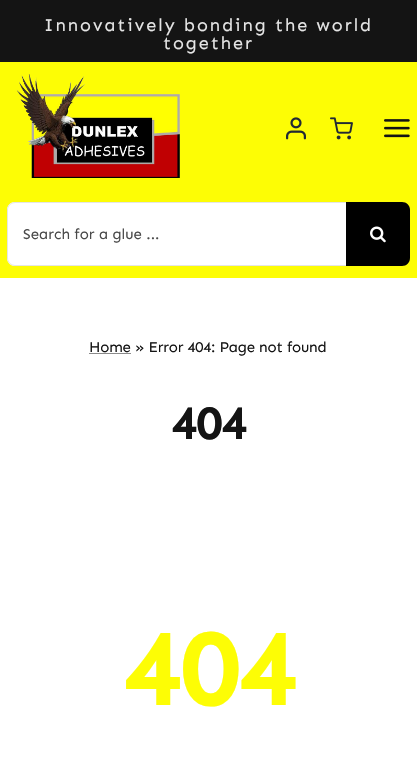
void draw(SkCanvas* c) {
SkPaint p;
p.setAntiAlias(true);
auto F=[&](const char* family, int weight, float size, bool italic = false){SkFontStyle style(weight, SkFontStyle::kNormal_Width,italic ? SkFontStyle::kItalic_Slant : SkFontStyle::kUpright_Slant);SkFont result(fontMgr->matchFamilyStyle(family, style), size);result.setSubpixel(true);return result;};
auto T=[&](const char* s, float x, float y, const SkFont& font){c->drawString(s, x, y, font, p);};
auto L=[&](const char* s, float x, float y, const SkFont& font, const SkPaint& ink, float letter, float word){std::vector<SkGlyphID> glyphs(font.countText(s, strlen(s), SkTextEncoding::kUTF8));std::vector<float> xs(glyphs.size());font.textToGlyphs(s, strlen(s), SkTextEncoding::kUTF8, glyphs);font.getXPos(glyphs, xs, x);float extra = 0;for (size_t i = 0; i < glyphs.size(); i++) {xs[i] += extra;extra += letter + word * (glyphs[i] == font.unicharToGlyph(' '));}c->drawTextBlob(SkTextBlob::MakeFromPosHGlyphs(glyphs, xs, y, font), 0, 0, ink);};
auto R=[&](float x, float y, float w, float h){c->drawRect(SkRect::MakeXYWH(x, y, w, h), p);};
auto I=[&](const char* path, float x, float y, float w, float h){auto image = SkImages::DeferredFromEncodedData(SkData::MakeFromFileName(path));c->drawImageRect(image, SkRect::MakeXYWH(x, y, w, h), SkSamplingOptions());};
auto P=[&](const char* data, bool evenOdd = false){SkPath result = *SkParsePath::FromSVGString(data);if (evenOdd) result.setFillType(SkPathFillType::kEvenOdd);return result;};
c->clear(0xffffffff);
p.setColor(0xff141414);
R(0,0,417,62);
auto f1 = F("Sen",400,18);
p.setColor(0xffe5e5e5);
L("Innovatively bonding the world",44,31,f1,p,2,0);
L("together",163,49,f1,p,2,0);
p.setColor(0xfffdfd05);
R(0,62,417,216);
I("1.png",16,74,164,104);
I("2.png",286,117,20,23);
I("3.png",330,117,23,23);
I("4.png",384,119,26,19);
p.setColor(0xffffffff);
c->drawPath(P("M15 202h331v64h-331c-4.5 0-8-3.5-8-8v-48c0-4.5 3.5-8 8-8z"),p);
p.setColor(0xffe5e5e5);
c->drawPath(P("M15 202h331v64h-331c-4 0-8-4-8-8v-48c0-4 4-8 8-8zm0 1h331v62h-331c-4 0-7-3-7-7v-48c0-4 3-7 7-7z",true),p);
auto f2 = F("Sen",400,15);
p.setColor(0xff494949);
T("Search for a glue ...",23,239,f2);
p.setColor(0xff000000);
c->drawPath(P("M346 202h56c4.5 0 8 3.5 8 8v48c0 4.5-3.5 8-8 8h-56z"),p);
I("5.png",370,226,16,17);
p.setStroke(true);
p.setStrokeWidth(1);
p.setColor(0xff141414);
p.setPathEffect(SkDashPathEffect::Make({{1,1}}, 0));
c->drawPath(P("M89.5 353.5h41.5"),p);
p.setPathEffect(nullptr);
p.setStroke(false);
L("Home » Error 404: Page not found",89,352,f2,p,-.2,0);
auto f3 = F("Sen",700,48);
L("404",171,439,f3,p,-2,0);
auto f4 = F("Sen",700,110);
p.setColor(0xfffdfd05);
L("404",122,705,f4,p,-4,0);
}
